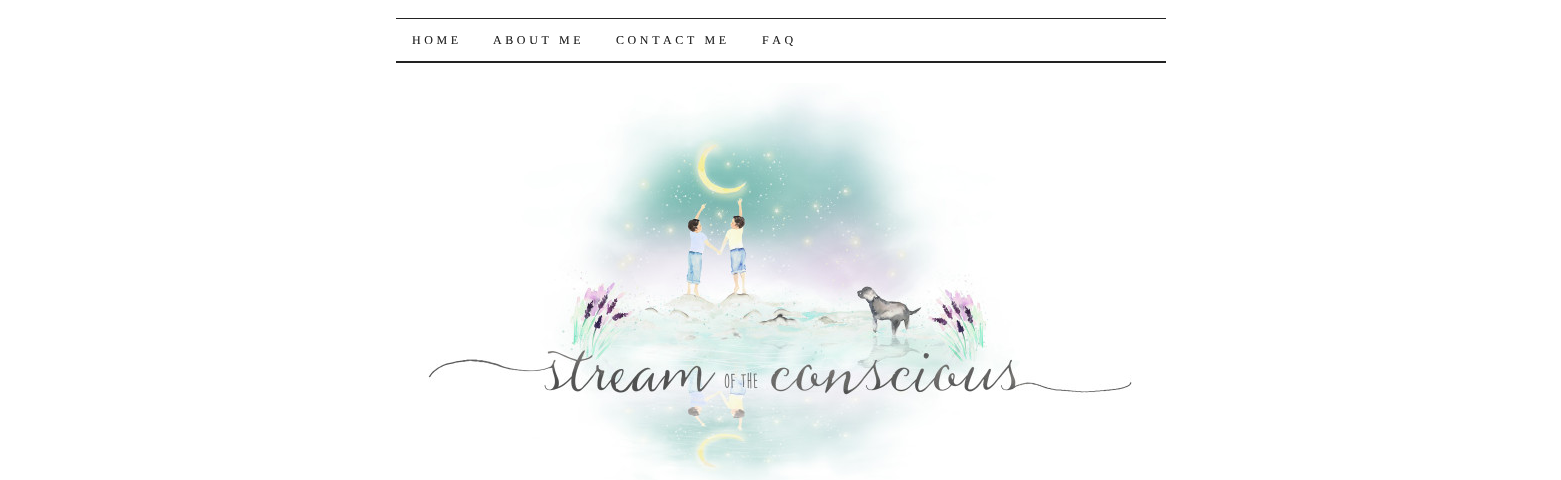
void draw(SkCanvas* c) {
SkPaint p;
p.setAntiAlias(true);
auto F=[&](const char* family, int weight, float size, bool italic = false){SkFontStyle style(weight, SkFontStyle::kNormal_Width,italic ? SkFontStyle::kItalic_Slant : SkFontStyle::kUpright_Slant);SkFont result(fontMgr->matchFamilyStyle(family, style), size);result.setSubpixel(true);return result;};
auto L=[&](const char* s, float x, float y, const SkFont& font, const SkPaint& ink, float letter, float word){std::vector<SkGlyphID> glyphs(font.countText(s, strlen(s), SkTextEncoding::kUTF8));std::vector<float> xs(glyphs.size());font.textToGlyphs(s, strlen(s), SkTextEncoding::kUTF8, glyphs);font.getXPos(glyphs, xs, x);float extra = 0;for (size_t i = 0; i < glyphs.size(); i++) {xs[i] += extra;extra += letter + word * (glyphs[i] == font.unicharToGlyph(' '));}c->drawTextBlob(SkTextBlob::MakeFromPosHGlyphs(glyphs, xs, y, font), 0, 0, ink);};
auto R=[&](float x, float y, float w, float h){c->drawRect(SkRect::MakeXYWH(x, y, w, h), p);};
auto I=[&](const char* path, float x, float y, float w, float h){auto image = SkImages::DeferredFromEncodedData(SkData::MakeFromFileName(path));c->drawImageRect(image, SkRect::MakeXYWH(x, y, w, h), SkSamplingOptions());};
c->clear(0xffffffff);
p.setColor(0xff222222);
R(396,18,770,1);
R(396,61,770,2);
auto f1 = F("Liberation Serif",400,12);
L("HOME",412,44,f1,p,3.6,0);
L("ABOUT ME",493,44,f1,p,3.6,0);
L("CONTACT ME",616,44,f1,p,3.6,0);
L("FAQ",762,44,f1,p,3.6,0);
I("1.png",428,83,704,397);
}
